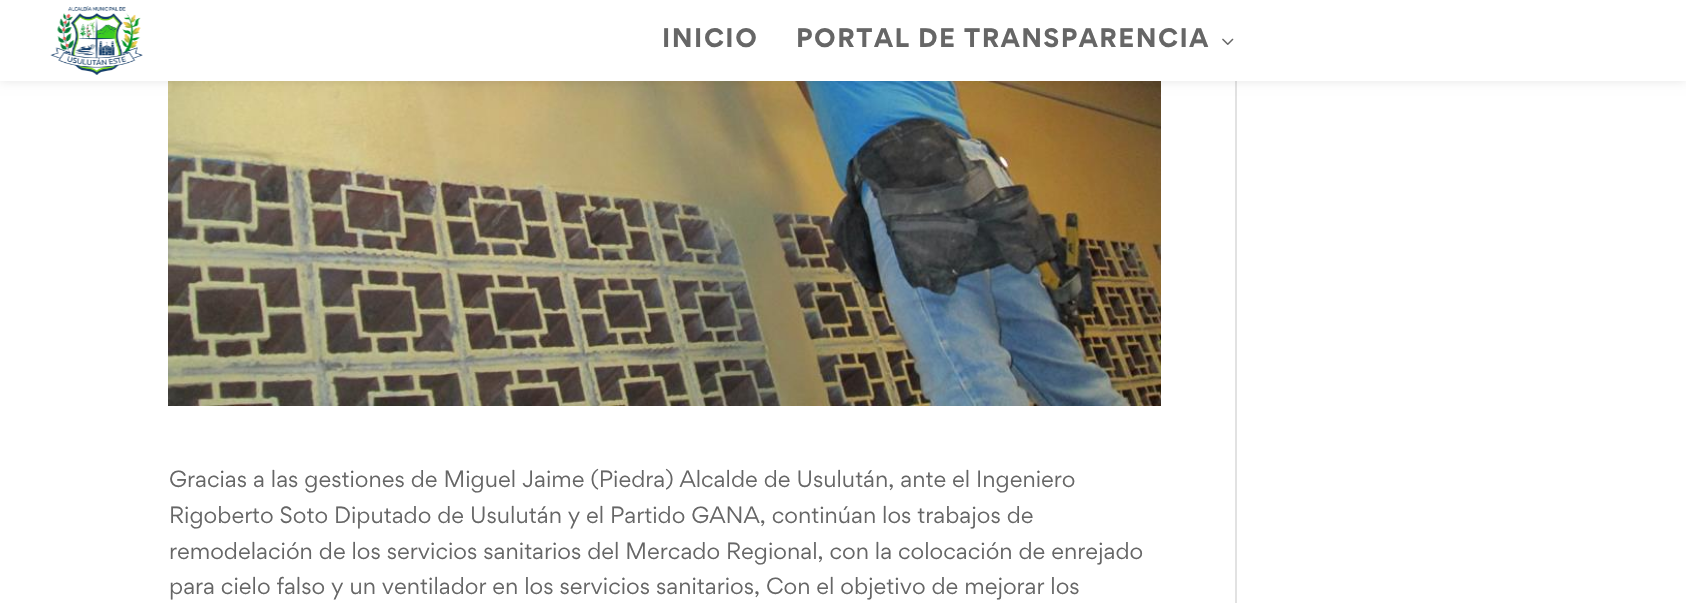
void draw(SkCanvas* c) {
SkPaint p;
p.setAntiAlias(true);
auto F=[&](const char* family, int weight, float size, bool italic = false){SkFontStyle style(weight, SkFontStyle::kNormal_Width,italic ? SkFontStyle::kItalic_Slant : SkFontStyle::kUpright_Slant);SkFont result(fontMgr->matchFamilyStyle(family, style), size);result.setSubpixel(true);return result;};
auto T=[&](const char* s, float x, float y, const SkFont& font){c->drawString(s, x, y, font, p);};
auto L=[&](const char* s, float x, float y, const SkFont& font, const SkPaint& ink, float letter, float word){std::vector<SkGlyphID> glyphs(font.countText(s, strlen(s), SkTextEncoding::kUTF8));std::vector<float> xs(glyphs.size());font.textToGlyphs(s, strlen(s), SkTextEncoding::kUTF8, glyphs);font.getXPos(glyphs, xs, x);float extra = 0;for (size_t i = 0; i < glyphs.size(); i++) {xs[i] += extra;extra += letter + word * (glyphs[i] == font.unicharToGlyph(' '));}c->drawTextBlob(SkTextBlob::MakeFromPosHGlyphs(glyphs, xs, y, font), 0, 0, ink);};
auto R=[&](float x, float y, float w, float h){c->drawRect(SkRect::MakeXYWH(x, y, w, h), p);};
auto I=[&](const char* path, float x, float y, float w, float h){auto image = SkImages::DeferredFromEncodedData(SkData::MakeFromFileName(path));c->drawImageRect(image, SkRect::MakeXYWH(x, y, w, h), SkSamplingOptions());};
c->clear(0xffffffff);
I("3.png",168,81,993,325);
p.setColor(0xffe2e2e2);
R(1235,81,2,522);
p.setColor(0x1a000000);
p.setMaskFilter(SkMaskFilter::MakeBlur(kNormal_SkBlurStyle, 5));
c->drawRect(SkRect::MakeXYWH(0,0,1686,81),p);
p.setMaskFilter(nullptr);
p.setColor(0xffffffff);
R(0,0,1686,81);
I("1.png",50,6,93,69);
auto f1 = F("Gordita",700,24);
p.setColor(0xff666666);
L("INICIO",662,47,f1,p,1.5,0);
L("PORTAL DE TRANSPARENCIA",796,47,f1,p,1.5,0);
I("2.png",1222,38,12,7);
auto f2 = F("Gordita",400,21);
T("Gracias a las gestiones de Miguel Jaime (Piedra) Alcalde de Usulután, ante el Ingeniero",169,487,f2);
T("Rigoberto Soto Diputado de Usulután y el Partido GANA, continúan los trabajos de",169,523,f2);
T("remodelación de los servicios sanitarios del Mercado Regional, con la colocación de enrejado",169,559,f2);
T("para cielo falso y un ventilador en los servicios sanitarios, Con el objetivo de mejorar los",169,594,f2);
}
